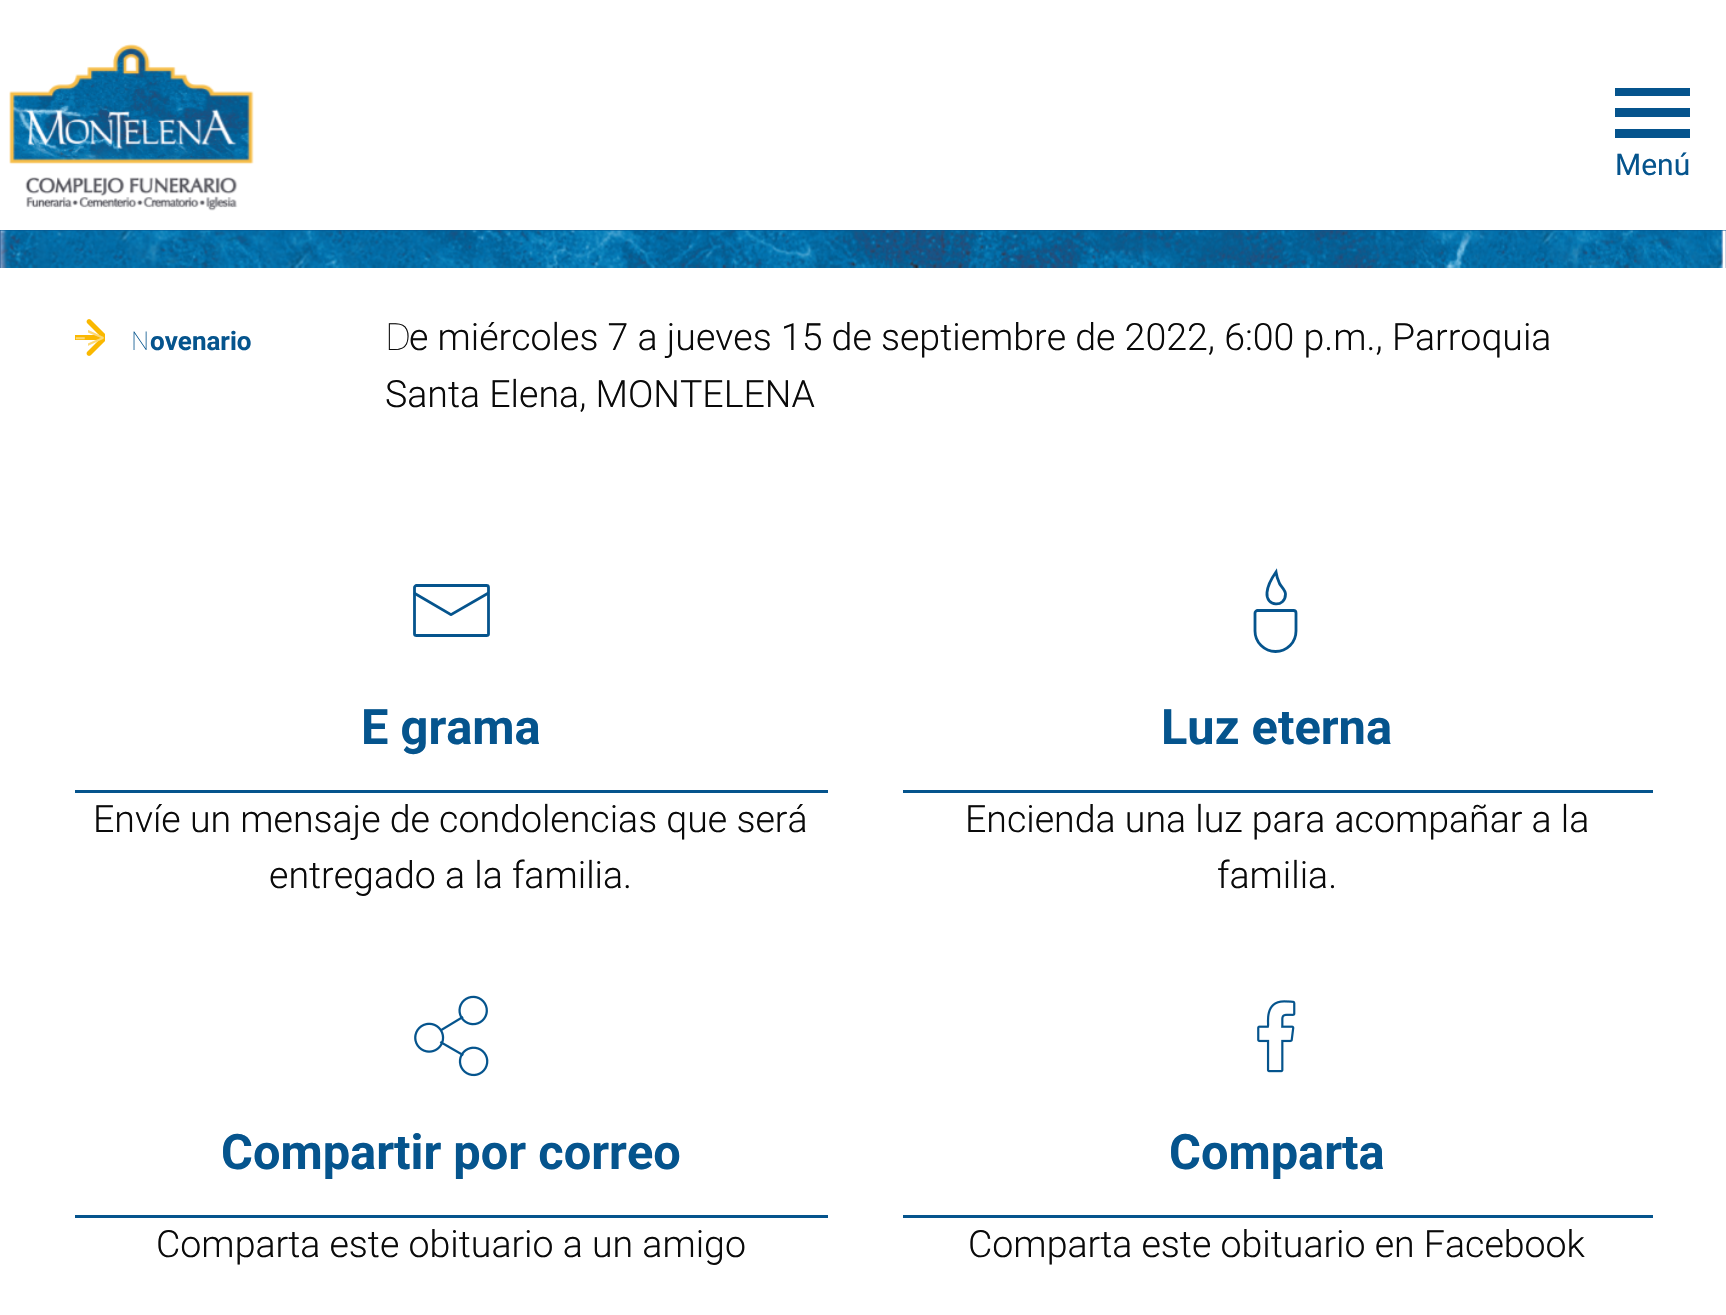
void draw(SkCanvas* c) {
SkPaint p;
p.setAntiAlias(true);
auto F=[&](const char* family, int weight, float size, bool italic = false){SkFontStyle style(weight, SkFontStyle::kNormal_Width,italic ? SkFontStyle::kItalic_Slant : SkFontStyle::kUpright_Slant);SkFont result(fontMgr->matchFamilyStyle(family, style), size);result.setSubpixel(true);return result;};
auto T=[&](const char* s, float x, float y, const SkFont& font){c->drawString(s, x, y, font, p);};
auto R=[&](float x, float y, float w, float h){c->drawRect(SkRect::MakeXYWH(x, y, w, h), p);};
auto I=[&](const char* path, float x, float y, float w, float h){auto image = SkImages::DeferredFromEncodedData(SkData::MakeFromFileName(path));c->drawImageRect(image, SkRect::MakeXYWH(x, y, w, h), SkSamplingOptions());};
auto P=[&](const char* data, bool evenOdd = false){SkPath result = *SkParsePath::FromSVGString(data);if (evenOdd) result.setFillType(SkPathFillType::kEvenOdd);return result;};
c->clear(0xffffffff);
I("1.png",9,44,245,167);
p.setColor(0xff05548d);
R(1615,129,75,9);
R(1615,108,75,9);
R(1615,88,75,8);
auto f1 = F("Roboto",400,30);
T("Menú",1615,175,f1);
R(0,230,1726,38);
I("2.png",0,230,1726,38);
I("3.png",75,319,30,37);
auto f2 = F("Roboto",300,37.5);
p.setColor(0xfffcd976);
T("->",75,350,f2);
auto f3 = F("Noto Sans",100,26);
p.setColor(0xff05548d);
T("N",131,350,f3);
auto f4 = F("Roboto",700,26);
T("ovenario",150,350,f4);
auto f5 = F("Noto Sans",100,37.5);
p.setColor(0xff0a0a0a);
T("D",385,350,f5);
T("e miércoles 7 a jueves 15 de septiembre de 2022, 6:00 p.m., Parroquia",409,350,f2);
T("Santa Elena, MONTELENA",385,407,f2);
p.setStroke(true);
p.setStrokeWidth(2.8);
p.setColor(0xff05548d);
c->drawPath(P("M416.5 585.5h70c1.5 0 2 1 2 2v46.5c0 1-.5 1.5-2 1.5h-70c-1 0-2-.5-2-1.5v-46.5c0-1 1-2 2-2z"),p);
c->drawPath(P("M414 593l36 21c.5 .5 1.5 .5 2 0l36.5-21"),p);
p.setStroke(false);
R(75,790,753,3);
auto f6 = F("Roboto",700,48.75);
T("E grama",361,744,f6);
p.setColor(0xff0a0a0a);
T("Envíe un mensaje de condolencias que será",93,832,f2);
T("entregado a la familia.",269,888,f2);
p.setStroke(true);
p.setColor(0xff05548d);
c->drawPath(P("M1257.5 610.5h36c1.5 0 2.5 1 2.5 2.5v18c0 11.5-9 20.5-20.5 20.5c-11 0-20.5-9-20.5-20.5v-18c0-1.5 1.5-2.5 2.5-2.5z"),p);
c->drawPath(P("M1285.5 594c0 14-20 13-18.5-1.5c.5-6 5.5-15.5 9-20.5c.5 4 2 8 3.5 11.5c1.5 3 6 6.5 6 10.5z"),p);
p.setStroke(false);
R(903,790,750,3);
T("Luz eterna",1161,744,f6);
p.setColor(0xff0a0a0a);
T("Encienda una luz para acompañar a la",965,832,f2);
T("familia.",1217,888,f2);
I("4.png",414,995,75,82);
p.setColor(0xff05548d);
R(75,1215,753,3);
T("Compartir por correo",221,1169,f6);
p.setColor(0xff0a0a0a);
T("Comparta este obituario a un amigo",156,1257,f2);
I("5.png",1257,1000,39,73);
p.setColor(0xff05548d);
R(903,1215,750,3);
T("Comparta",1169,1169,f6);
p.setColor(0xff0a0a0a);
T("Comparta este obituario en Facebook",968,1257,f2);
}
